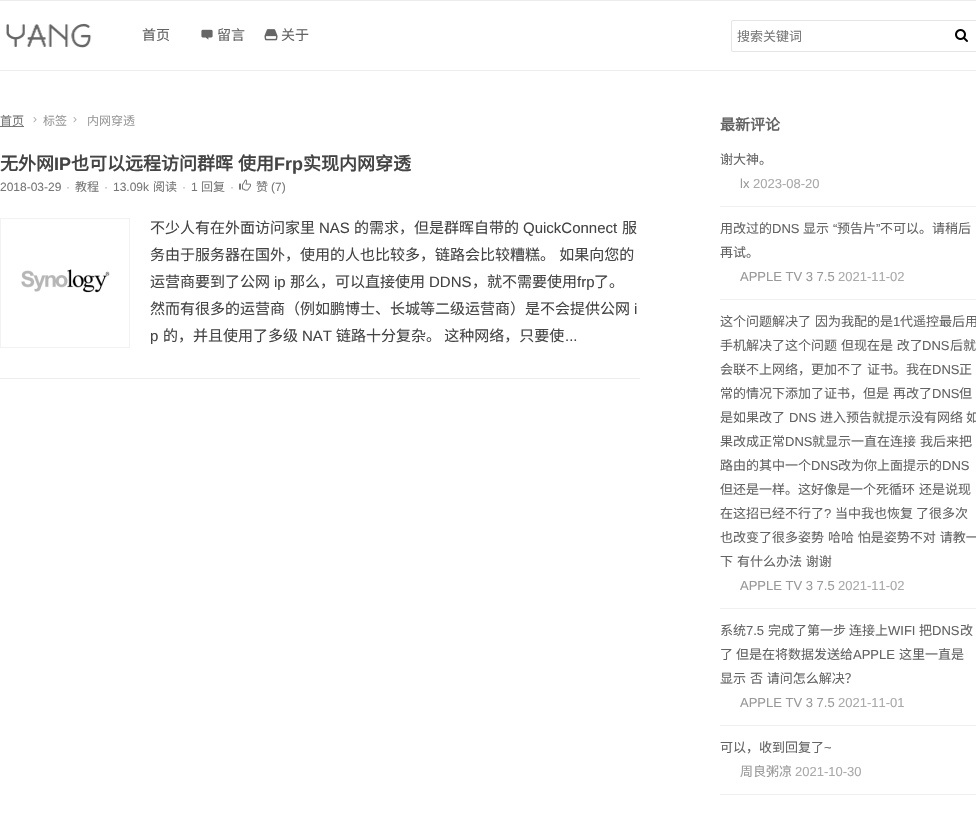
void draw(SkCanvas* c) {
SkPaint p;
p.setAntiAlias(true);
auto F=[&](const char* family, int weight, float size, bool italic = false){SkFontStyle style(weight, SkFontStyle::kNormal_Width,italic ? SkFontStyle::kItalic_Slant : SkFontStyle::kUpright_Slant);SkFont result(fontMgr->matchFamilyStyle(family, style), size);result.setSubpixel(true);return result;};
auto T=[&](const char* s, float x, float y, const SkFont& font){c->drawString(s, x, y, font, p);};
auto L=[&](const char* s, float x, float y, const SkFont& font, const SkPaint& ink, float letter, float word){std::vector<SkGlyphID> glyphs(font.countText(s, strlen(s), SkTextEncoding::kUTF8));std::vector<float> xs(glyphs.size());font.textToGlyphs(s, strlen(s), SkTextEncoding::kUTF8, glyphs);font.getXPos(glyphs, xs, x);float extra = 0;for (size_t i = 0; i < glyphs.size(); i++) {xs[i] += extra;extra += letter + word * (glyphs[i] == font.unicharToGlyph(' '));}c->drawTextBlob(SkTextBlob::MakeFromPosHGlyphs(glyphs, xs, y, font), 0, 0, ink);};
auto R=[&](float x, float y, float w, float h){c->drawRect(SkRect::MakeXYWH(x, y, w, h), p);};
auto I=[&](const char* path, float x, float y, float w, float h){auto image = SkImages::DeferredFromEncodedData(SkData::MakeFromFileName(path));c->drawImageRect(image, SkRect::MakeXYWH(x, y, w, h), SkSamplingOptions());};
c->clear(0xffffffff);
p.setColor(0xffececec);
R(0,0,976,1);
p.setColor(0xffededed);
R(0,70,976,1);
I("1.png",6,23,86,25);
auto f1 = F("Noto Sans CJK SC",400,14);
p.setColor(0xff636363);
T("首页",142,40,f1);
I("2.png",201,29,12,11);
T("留言",217,40,f1);
I("3.png",264,29,14,12);
T("关于",281,40,f1);
p.setStroke(true);
p.setStrokeWidth(1);
p.setColor(0xffe5e5e5);
c->drawRoundRect(SkRect::MakeXYWH(731.5,20.5,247,31),1.5,1.5,p);
auto f2 = F("Noto Sans CJK SC",400,13);
p.setStroke(false);
p.setColor(0xff777777);
T("搜索关键词",737,41,f2);
I("4.png",955,29,13,13);
auto f3 = F("Noto Sans CJK SC",400,12);
T("首页",0,125,f3);
R(0,126,24,1);
I("5.png",33,117,4,6);
p.setColor(0xff999999);
T("标签",43,125,f3);
I("5.png",73,117,4,6);
T("内网穿透",87,125,f3);
p.setColor(0xffeeeeee);
R(0,378,640,1);
auto f4 = F("Noto Sans CJK SC",700,18);
p.setColor(0xff444444);
T("无外网",0,170,f4);
auto f5 = F("Liberation Sans",700,18);
T("IP",54,170,f5);
L("也可以远程访问群晖 使用",71,170,f4,p,0,1);
T("Frp",274,170,f5);
T("实现内网穿透",303,170,f4);
auto f6 = F("Liberation Sans",400,12);
p.setColor(0xff777777);
T("2018-03-29",0,191,f6);
p.setColor(0xffbbbbbb);
T("·",66,191,f6);
p.setColor(0xff777777);
T("教程",75,191,f3);
p.setColor(0xffbbbbbb);
T("·",104,191,f6);
p.setColor(0xff777777);
T("13.09k",113,191,f6);
T("阅读",153,191,f3);
p.setColor(0xffbbbbbb);
T("·",182,191,f6);
p.setColor(0xff777777);
T("1",191,191,f6);
T("回复",201,191,f3);
p.setColor(0xffbbbbbb);
T("·",230,191,f6);
I("6.png",239,179,12,12);
p.setColor(0xff777777);
T("赞",256,191,f3);
T("(7)",271,191,f6);
I("7.png",1,219,128,128);
p.setStroke(true);
p.setColor(0xfff2f2f2);
c->drawRect(SkRect::MakeXYWH(.5,218.5,129,129),p);
auto f7 = F("Noto Sans CJK SC",400,15);
p.setStroke(false);
p.setColor(0xff444444);
T("不少人有在外面访问家里",150,233,f7);
auto f8 = F("Liberation Sans",400,15);
T("NAS",319,233,f8);
T("的需求，但是群晖自带的",354,233,f7);
T("QuickConnect",523,233,f8);
T("服",622,233,f7);
L("务由于服务器在国外，使用的人也比较多，链路会比较糟糕。 如果向您的",150,260,f7,p,0,1);
T("运营商要到了公网",150,287,f7);
T("ip",274,287,f8);
T("那么，可以直接使用",290,287,f7);
T("DDNS",429,287,f8);
T("，就不需要使用",472,287,f7);
T("frp",577,287,f8);
T("了。",594,287,f7);
T("然而有很多的运营商（例如鹏博士、长城等二级运营商）是不会提供公网",150,314,f7);
T("i",634,314,f8);
T("p",150,341,f8);
T("的，并且使用了多级",163,341,f7);
T("NAT",302,341,f8);
T("链路十分复杂。 这种网络，只要使",336,341,f7);
T("...",565,341,f8);
auto f9 = F("Noto Sans CJK SC",700,15);
p.setColor(0xff636363);
T("最新评论",720,130,f9);
p.setColor(0xfff0f0f0);
R(720,206,256,1);
p.setColor(0xff636363);
T("谢大神。",720,164,f2);
auto f10 = F("Liberation Sans",400,13);
p.setColor(0xff999999);
T("lx",740,188,f10);
p.setColor(0xffaaaaaa);
T("2023-08-20",753,188,f10);
p.setColor(0xfff0f0f0);
R(720,299,256,1);
p.setColor(0xff636363);
T("用改过的",720,233,f2);
T("DNS",772,233,f10);
T("显示",803,233,f2);
T("“",833,233,f10);
T("预告片",837,233,f2);
T("”",876,233,f10);
T("不可以。请稍后",880,233,f2);
T("再试。",720,257,f2);
p.setColor(0xff999999);
T("APPLE TV 3 7.5",740,281,f10);
p.setColor(0xffaaaaaa);
T("2021-11-02",838,281,f10);
p.setColor(0xfff0f0f0);
R(720,608,256,1);
p.setColor(0xff636363);
L("这个问题解决了 因为我配的是",720,326,f2,p,0,1);
T("1",893,326,f10);
T("代遥控最后用",900,326,f2);
L("手机解决了这个问题 但现在是 改了",720,350,f2,p,0,1);
T("DNS",922,350,f10);
T("后就",950,350,f2);
L("会联不上网络，更加不了 证书。我在",720,374,f2,p,0,1);
T("DNS",932,374,f10);
T("正",959,374,f2);
L("常的情况下添加了证书，但是 再改了",720,398,f2,p,0,1);
T("DNS",932,398,f10);
T("但",959,398,f2);
T("是如果改了",720,422,f2);
T("DNS",789,422,f10);
T("进入预告就提示没有网络 如",820,422,f2);
T("果改成正常",720,446,f2);
T("DNS",785,446,f10);
L("就显示一直在连接 我后来把",812,446,f2,p,0,1);
T("路由的其中一个",720,470,f2);
T("DNS",811,470,f10);
T("改为你上面提示的",838,470,f2);
T("DNS",942,470,f10);
L("但还是一样。这好像是一个死循环 还是说现",720,494,f2,p,0,1);
T("在这招已经不行了",720,518,f2);
T("?",824,518,f10);
T("当中我也恢复 了很多次",835,518,f2);
L("也改变了很多姿势 哈哈 怕是姿势不对 请教一",720,542,f2,p,0,1);
L("下 有什么办法 谢谢",720,566,f2,p,0,1);
p.setColor(0xff999999);
T("APPLE TV 3 7.5",740,590,f10);
p.setColor(0xffaaaaaa);
T("2021-11-02",838,590,f10);
p.setColor(0xfff0f0f0);
R(720,725,256,1);
p.setColor(0xff636363);
T("系统",720,635,f2);
T("7.5",746,635,f10);
T("完成了第一步 连接上",768,635,f2);
T("WIFI",888,635,f10);
T("把",919,635,f2);
T("DNS",932,635,f10);
T("改",960,635,f2);
T("了 但是在将数据发送给",720,659,f2);
T("APPLE",853,659,f10);
T("这里一直是",899,659,f2);
L("显示 否 请问怎么解决？",720,683,f2,p,0,1);
p.setColor(0xff999999);
T("APPLE TV 3 7.5",740,707,f10);
p.setColor(0xffaaaaaa);
T("2021-11-01",838,707,f10);
p.setColor(0xfff0f0f0);
R(720,794,256,1);
p.setColor(0xff636363);
T("可以，收到回复了",720,752,f2);
T("~",824,752,f10);
p.setColor(0xff999999);
T("周良粥凉",740,776,f2);
p.setColor(0xffaaaaaa);
T("2021-10-30",795,776,f10);
}
